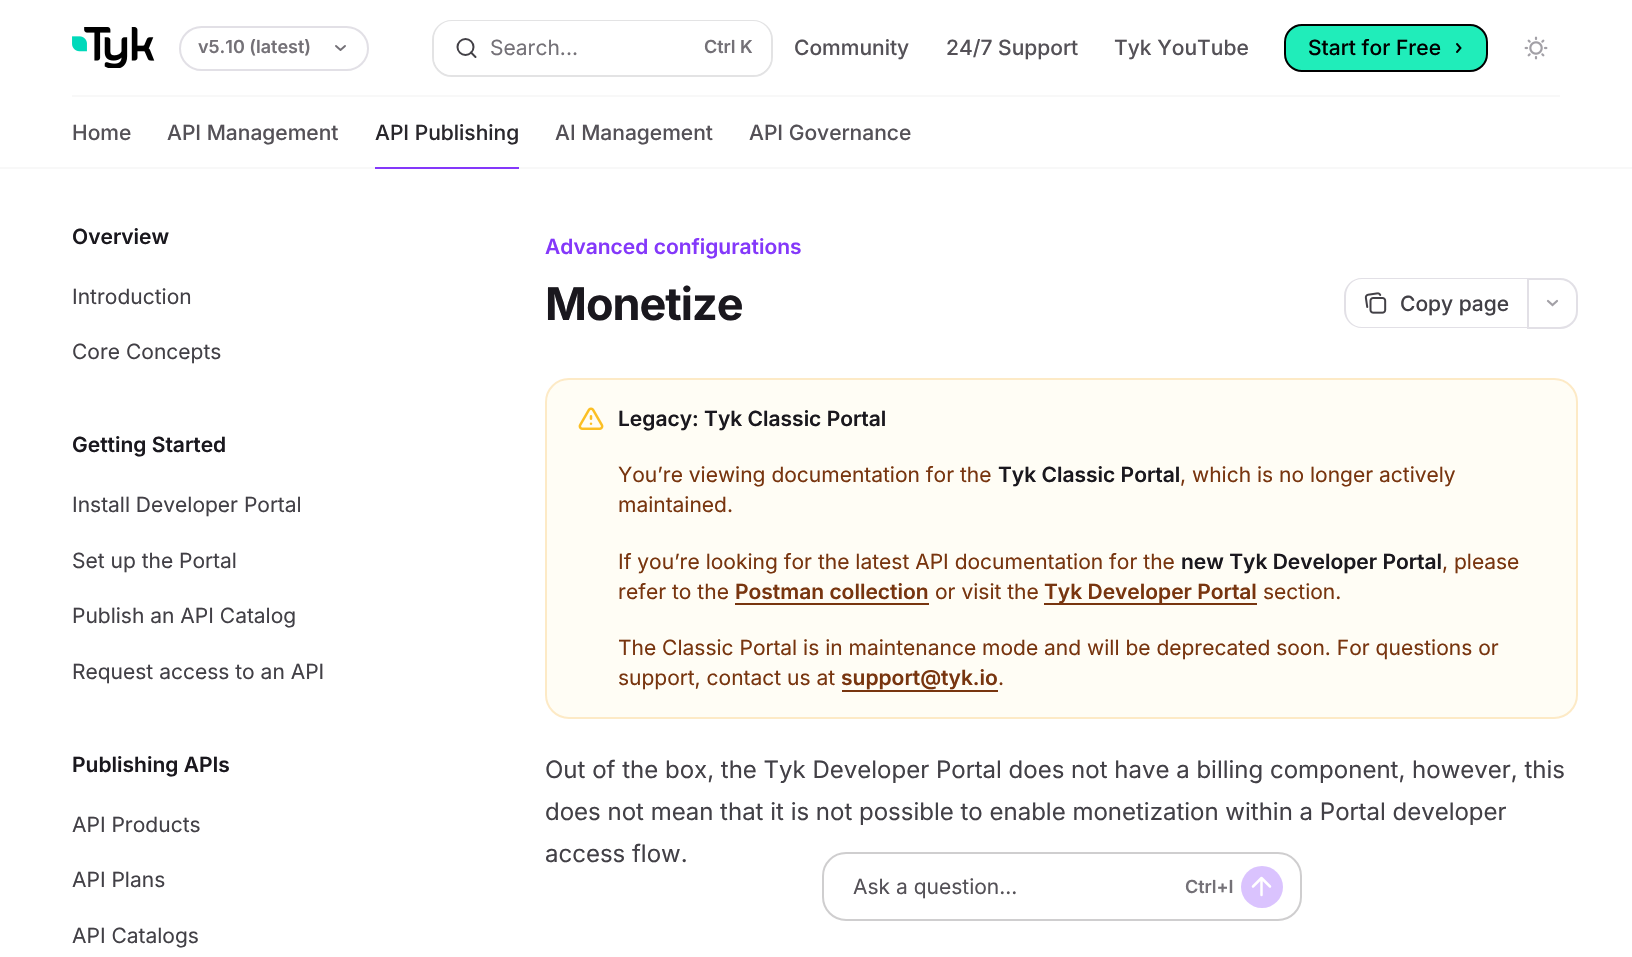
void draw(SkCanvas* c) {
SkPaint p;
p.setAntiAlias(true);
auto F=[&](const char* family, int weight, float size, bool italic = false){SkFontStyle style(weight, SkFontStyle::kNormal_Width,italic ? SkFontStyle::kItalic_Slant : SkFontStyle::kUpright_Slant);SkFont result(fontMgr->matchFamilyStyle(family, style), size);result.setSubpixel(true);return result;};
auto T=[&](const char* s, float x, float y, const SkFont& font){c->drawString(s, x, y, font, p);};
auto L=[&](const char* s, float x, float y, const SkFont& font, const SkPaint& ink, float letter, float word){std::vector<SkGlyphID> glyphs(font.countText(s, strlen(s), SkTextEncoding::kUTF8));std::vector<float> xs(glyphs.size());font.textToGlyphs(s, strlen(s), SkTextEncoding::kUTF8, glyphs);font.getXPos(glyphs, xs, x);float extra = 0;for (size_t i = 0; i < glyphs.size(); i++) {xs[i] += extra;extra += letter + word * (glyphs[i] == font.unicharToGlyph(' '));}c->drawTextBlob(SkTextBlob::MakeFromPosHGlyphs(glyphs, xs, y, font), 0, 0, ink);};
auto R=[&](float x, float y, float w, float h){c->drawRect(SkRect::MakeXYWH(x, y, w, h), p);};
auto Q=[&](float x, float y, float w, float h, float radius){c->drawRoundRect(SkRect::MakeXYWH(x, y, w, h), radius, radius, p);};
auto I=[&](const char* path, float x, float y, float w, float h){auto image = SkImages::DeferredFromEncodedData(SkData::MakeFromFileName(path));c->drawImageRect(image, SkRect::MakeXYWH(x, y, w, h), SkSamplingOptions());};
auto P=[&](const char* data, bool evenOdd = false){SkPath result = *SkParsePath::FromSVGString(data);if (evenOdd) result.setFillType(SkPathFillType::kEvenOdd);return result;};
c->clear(0xffffffff);
p.setColor(0xfff8f8f8);
R(72,95,1488,2);
I("1.png",72,27,83,41);
p.setStroke(true);
p.setStrokeWidth(2);
p.setColor(0xffe2e0e6);
c->drawRoundRect(SkRect::MakeXYWH(180,27,188,43),21.5,21.5,p);
auto f1 = F("Inter",600,18);
p.setStroke(false);
p.setColor(0xff747177);
T("v5.10 (latest)",198,53,f1);
p.setStroke(true);
p.setStrokeWidth(1.9);
p.setStrokeCap(SkPaint::kRound_Cap);
p.setStrokeJoin(SkPaint::kRound_Join);
c->drawPath(P("M336 46l4.5 4l4.5-4"),p);
p.setStrokeWidth(2);
p.setStrokeCap(SkPaint::kButt_Cap);
p.setStrokeJoin(SkPaint::kMiter_Join);
p.setColor(0xffe3e3e4);
c->drawRoundRect(SkRect::MakeXYWH(433,21,339,55),19,19,p);
p.setStroke(false);
p.setColor(0xffffffff);
Q(434,21,337,54,18);
p.setStroke(true);
p.setColor(0xff424046);
c->drawCircle(465.5,47,8,p);
p.setStrokeCap(SkPaint::kRound_Cap);
p.setStrokeJoin(SkPaint::kRound_Join);
c->drawPath(P("M475.5 57l-4.5-4.5"),p);
auto f2 = F("Inter",400,21);
p.setStroke(false);
p.setColor(0xff747177);
T("Search...",490,55,f2);
T("Ctrl K",704,53,f1);
auto f3 = F("Inter",500,21);
p.setColor(0xff545157);
T("Community",794,55,f3);
T("24/7 Support",946,55,f3);
T("Tyk YouTube",1114,55,f3);
p.setColor(0xff20edba);
c->drawRoundRect(SkRect::MakeXYWH(1285,25,202,46),17,17,p);
p.setStroke(true);
p.setStrokeCap(SkPaint::kButt_Cap);
p.setStrokeJoin(SkPaint::kMiter_Join);
p.setColor(0xff000000);
c->drawRoundRect(SkRect::MakeXYWH(1285,25,202,46),17,17,p);
p.setStroke(false);
T("Start for Free",1308,55,f3);
p.setStroke(true);
p.setStrokeWidth(1.9);
p.setStrokeCap(SkPaint::kRound_Cap);
c->drawPath(P("M1457 44l3.5 4l-3.5 4"),p);
I("2.png",1524,36,24,24);
p.setStroke(false);
p.setColor(0xff545157);
T("Home",72,140,f3);
T("API Management",167,140,f3);
p.setColor(0xff29272c);
T("API Publishing",375,140,f3);
p.setColor(0xfff8f8f8);
R(0,167,1632,2);
p.setColor(0xff8438fa);
R(375,167,144,2);
p.setColor(0xff545157);
T("AI Management",555,140,f3);
T("API Governance",749,140,f3);
auto f4 = F("Inter",600,21);
p.setColor(0xff1a181e);
T("Overview",72,244,f4);
p.setColor(0xff424046);
T("Introduction",72,304,f2);
T("Core Concepts",72,359,f2);
p.setColor(0xff1a181e);
T("Getting Started",72,452,f4);
p.setColor(0xff424046);
T("Install Developer Portal",72,512,f2);
T("Set up the Portal",72,568,f2);
T("Publish an API Catalog",72,623,f2);
T("Request access to an API",72,679,f2);
p.setColor(0xff1a181e);
T("Publishing APIs",72,772,f4);
p.setColor(0xff424046);
T("API Products",72,832,f2);
T("API Plans",72,887,f2);
T("API Catalogs",72,943,f2);
p.setColor(0xff8438fa);
T("Advanced configurations",545,254,f4);
auto f5 = F("Inter",700,45);
p.setColor(0xff1a181e);
L("Monetize",545,320,f5,p,-1,0);
p.setColor(0xffe2e0e6);
c->drawPath(P("M1362 278h165v50h-165c-10 0-18-8-18-18v-14c0-10 8-18 18-18zm0 1h165v48h-165c-9 0-16-7-16-17v-14c0-10 7-17 16-17z",true),p);
I("3.png",1364,292,23,22);
p.setColor(0xff424046);
T("Copy page",1400,311,f3);
p.setStroke(true);
p.setStrokeWidth(2);
p.setStrokeCap(SkPaint::kButt_Cap);
p.setColor(0xffe2e0e6);
c->drawPath(P("M1528 279h32c9.5 0 17 7.5 17 17v15c0 9.5-7.5 17-17 17h-32z"),p);
p.setStrokeWidth(2.2);
p.setStrokeCap(SkPaint::kRound_Cap);
p.setColor(0xffa2a0a6);
c->drawPath(P("M1557 301l-4.5 4l-4.5-4"),p);
p.setStroke(false);
p.setColor(0xfffffdf5);
Q(545,378,1033,341,24);
p.setStroke(true);
p.setStrokeWidth(2);
p.setStrokeCap(SkPaint::kButt_Cap);
p.setColor(0x33f59e0b);
c->drawRoundRect(SkRect::MakeXYWH(546,379,1031,339),23,23,p);
I("4.png",578,407,26,23);
p.setStroke(false);
p.setColor(0xff1a181e);
T("Legacy: Tyk Classic Portal",618,426,f4);
p.setColor(0xff78350f);
T("You’re viewing documentation for the",618,482,f2);
p.setColor(0xff1a181e);
T("Tyk Classic Portal",998,482,f4);
p.setColor(0xff78350f);
T(", which is no longer actively",1180,482,f2);
T("maintained.",618,512,f2);
T("If you’re looking for the latest API documentation for the",618,569,f2);
p.setColor(0xff1a181e);
T("new Tyk Developer Portal",1181,569,f4);
p.setColor(0xff78350f);
T(", please",1442,569,f2);
T("refer to the",618,599,f2);
T("Postman collection",735,599,f4);
R(735,603,194,2);
T("or visit the",935,599,f2);
R(1044,603,213,2);
T("Tyk Developer Portal",1044,599,f4);
T("section.",1263,599,f2);
T("The Classic Portal is in maintenance mode and will be deprecated soon. For questions or",618,655,f2);
T("support, contact us at",618,685,f2);
T("support@tyk.io",841,685,f4);
R(842,690,156,2);
T(".",998,685,f2);
auto f6 = F("Inter",400,24);
p.setColor(0xff424046);
T("Out of the box, the Tyk Developer Portal does not have a billing component, however, this",545,778,f6);
T("does not mean that it is not possible to enable monetization within a Portal developer",545,820,f6);
T("access flow.",545,862,f6);
p.setStroke(true);
p.setColor(0xffcfcecf);
c->drawRoundRect(SkRect::MakeXYWH(823,853,478,67),23,23,p);
p.setStroke(false);
p.setColor(0xff545157);
T("Ask a question...",853,894,f2);
p.setColor(0xff747177);
T("Ctrl+I",1185,893,f1);
p.setColor(0xffdac3fe);
c->drawCircle(1262,887,21,p);
p.setStroke(true);
p.setStrokeWidth(2.5);
p.setStrokeCap(SkPaint::kRound_Cap);
p.setStrokeJoin(SkPaint::kRound_Join);
p.setColor(0xffffffff);
c->drawPath(P("M1253 886.5l8.5-8.5l8.5 8.5m-8.5 8.5v-17"),p);
}
